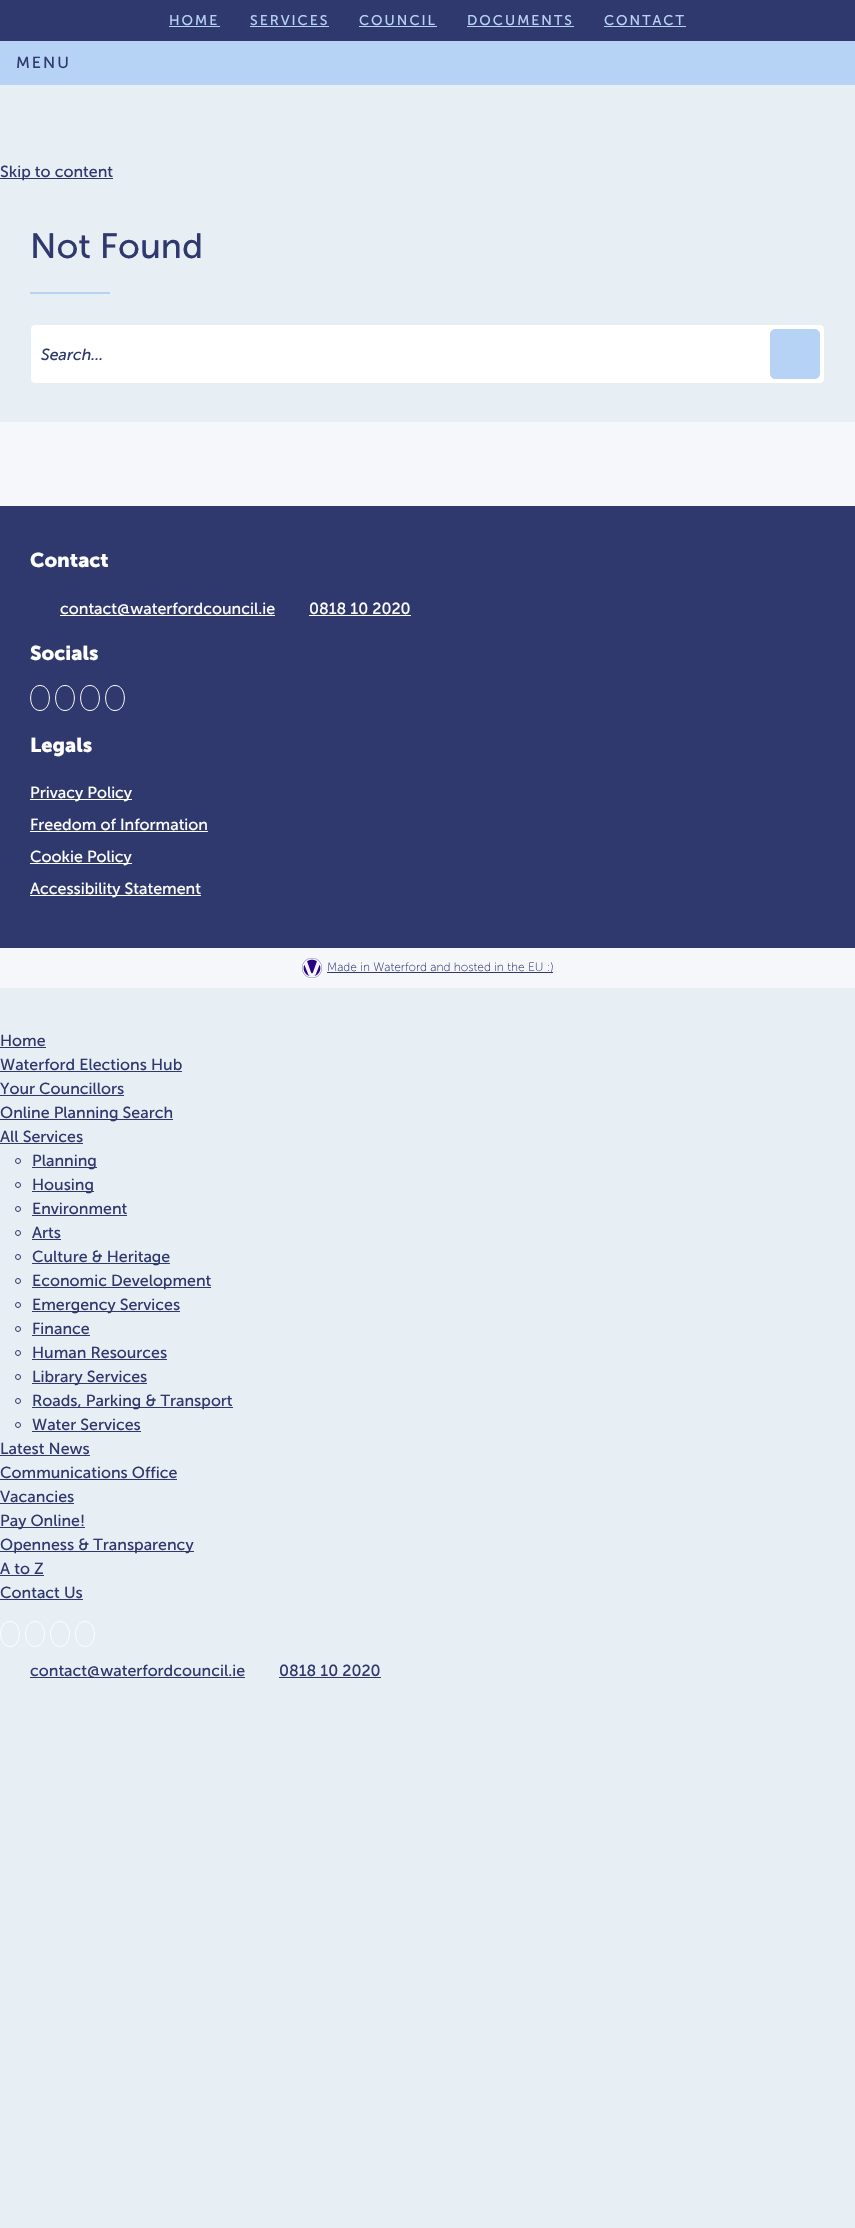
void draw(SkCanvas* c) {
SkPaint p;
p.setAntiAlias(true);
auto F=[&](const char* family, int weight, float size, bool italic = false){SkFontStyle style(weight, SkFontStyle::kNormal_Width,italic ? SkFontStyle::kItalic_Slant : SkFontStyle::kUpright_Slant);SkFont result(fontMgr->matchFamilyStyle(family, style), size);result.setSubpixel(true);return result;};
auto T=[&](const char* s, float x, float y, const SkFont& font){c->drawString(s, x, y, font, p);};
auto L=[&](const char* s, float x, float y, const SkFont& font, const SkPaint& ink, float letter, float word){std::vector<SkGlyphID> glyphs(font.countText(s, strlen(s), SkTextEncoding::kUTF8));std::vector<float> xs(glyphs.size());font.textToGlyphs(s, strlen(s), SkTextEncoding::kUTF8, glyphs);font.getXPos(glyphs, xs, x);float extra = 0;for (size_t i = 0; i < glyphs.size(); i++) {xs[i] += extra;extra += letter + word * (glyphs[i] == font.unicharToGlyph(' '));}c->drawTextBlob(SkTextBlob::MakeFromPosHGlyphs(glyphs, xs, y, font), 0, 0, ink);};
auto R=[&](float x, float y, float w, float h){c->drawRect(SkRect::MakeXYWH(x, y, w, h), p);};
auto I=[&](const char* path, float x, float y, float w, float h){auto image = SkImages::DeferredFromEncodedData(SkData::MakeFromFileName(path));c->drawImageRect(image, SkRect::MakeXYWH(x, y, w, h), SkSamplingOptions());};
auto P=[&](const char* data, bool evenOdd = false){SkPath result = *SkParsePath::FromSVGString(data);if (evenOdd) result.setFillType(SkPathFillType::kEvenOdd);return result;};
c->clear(0xffe7eef4);
p.setColor(0xff2f396e);
R(0,0,855,41);
auto f1 = F("Museo Sans",400,14);
p.setColor(0xffb6d3f5);
L("HOME",169,25,f1,p,2,0);
R(169,26,51,1);
L("SERVICES",250,25,f1,p,2,0);
R(250,26,79,1);
L("COUNCIL",359,25,f1,p,2,0);
R(359,26,78,1);
L("DOCUMENTS",467,25,f1,p,2,0);
R(467,26,107,1);
L("CONTACT",604,25,f1,p,2,0);
R(604,26,82,1);
R(0,41,855,44);
auto f2 = F("Museo Sans",400,16);
p.setColor(0xff2f396e);
L("MENU",16,68,f2,p,2,0);
R(0,178,113,1);
T("Skip to content",0,177,f2);
auto f3 = F("Museo Sans",400,35);
T("Not Found",30,258,f3);
p.setColor(0xffb6d3f5);
R(30,292,80,2);
p.setColor(0xffffffff);
c->drawRoundRect(SkRect::MakeXYWH(30.5,324.5,794,59),4.5,4.5,p);
p.setStroke(true);
p.setStrokeWidth(1);
p.setColor(0xffe7eef4);
c->drawRoundRect(SkRect::MakeXYWH(30.5,324.5,794,59),4.5,4.5,p);
auto f4 = F("Museo Sans",400,16,true);
p.setStroke(false);
p.setColor(0xff2f396e);
T("Search...",41,360,f4);
p.setColor(0xffb6d3f5);
c->drawRoundRect(SkRect::MakeXYWH(770.5,329.5,49,49),4.5,4.5,p);
p.setStroke(true);
c->drawRoundRect(SkRect::MakeXYWH(770.5,329.5,49,49),4.5,4.5,p);
p.setStroke(false);
p.setColor(0xfff5f7fb);
R(0,422,855,84);
p.setColor(0xff2f396e);
R(0,506,855,442);
auto f5 = F("Museo Sans",700,20);
p.setColor(0xffffffff);
T("Contact",30,567,f5);
R(60,615,215,1);
T("contact@waterfordcouncil.ie",60,614,f2);
T("0818 10 2020",309,614,f2);
R(309,615,102,1);
T("Socials",30,660,f5);
p.setStroke(true);
c->drawPath(P("M40 685.5c12.5 0 12.5 25 0 25c-12.5 0-12.5-25 0-25zm25 0c12.5 0 12.5 25 0 25c-12.5 0-12.5-25 0-25z"),p);
c->drawPath(P("M90 685.5c12.5 0 12.5 25 0 25c-12.5 0-12.5-25 0-25zm25 0c12.5 0 12.5 25 0 25c-12.5 0-12.5-25 0-25z"),p);
p.setStroke(false);
T("Legals",30,752,f5);
R(30,799,102,1);
T("Privacy Policy",30,798,f2);
T("Freedom of Information",30,830,f2);
R(30,831,178,1);
R(30,863,102,1);
T("Cookie Policy",30,862,f2);
R(30,895,171,1);
T("Accessibility Statement",30,894,f2);
p.setColor(0xfff5f7fb);
R(0,948,855,40);
I("1.png",302,958,20,20);
p.setColor(0xff2f396e);
R(327,972,226,1);
auto f6 = F("Museo Sans",200,12);
T("Made in Waterford and hosted in the EU :)",327,971,f6);
T("Home",0,1046,f2);
R(0,1047,46,1);
T("Waterford Elections Hub",0,1070,f2);
R(0,1071,182,1);
T("Your Councillors",0,1094,f2);
R(0,1095,124,1);
R(0,1119,173,1);
T("Online Planning Search",0,1118,f2);
T("All Services",0,1142,f2);
R(0,1143,83,1);
p.setStroke(true);
c->drawCircle(18,1161,2.5,p);
p.setStroke(false);
R(32,1167,65,1);
T("Planning",32,1166,f2);
p.setStroke(true);
c->drawCircle(18,1185,2.5,p);
p.setStroke(false);
R(32,1191,62,1);
T("Housing",32,1190,f2);
p.setStroke(true);
c->drawCircle(18,1209,2.5,p);
p.setStroke(false);
T("Environment",32,1214,f2);
R(32,1215,95,1);
p.setStroke(true);
c->drawCircle(18,1233,2.5,p);
p.setStroke(false);
T("Arts",32,1238,f2);
R(32,1239,29,1);
p.setStroke(true);
c->drawCircle(18,1257,2.5,p);
p.setStroke(false);
R(32,1263,138,1);
T("Culture & Heritage",32,1262,f2);
p.setStroke(true);
c->drawCircle(18,1281,2.5,p);
p.setStroke(false);
R(32,1287,179,1);
T("Economic Development",32,1286,f2);
p.setStroke(true);
c->drawCircle(18,1305,2.5,p);
p.setStroke(false);
R(32,1311,148,1);
T("Emergency Services",32,1310,f2);
p.setStroke(true);
c->drawCircle(18,1329,2.5,p);
p.setStroke(false);
T("Finance",32,1334,f2);
R(32,1335,58,1);
p.setStroke(true);
c->drawCircle(18,1353,2.5,p);
p.setStroke(false);
T("Human Resources",32,1358,f2);
R(32,1359,135,1);
p.setStroke(true);
c->drawCircle(18,1377,2.5,p);
p.setStroke(false);
R(32,1383,115,1);
T("Library Services",32,1382,f2);
p.setStroke(true);
c->drawCircle(18,1401,2.5,p);
p.setStroke(false);
R(32,1407,201,1);
T("Roads, Parking & Transport",32,1406,f2);
p.setStroke(true);
c->drawCircle(18,1425,2.5,p);
p.setStroke(false);
T("Water Services",32,1430,f2);
R(32,1431,109,1);
T("Latest News",0,1454,f2);
R(0,1455,90,1);
T("Communications Office",0,1478,f2);
R(0,1479,177,1);
T("Vacancies",0,1502,f2);
R(0,1503,74,1);
R(0,1527,85,1);
T("Pay Online!",0,1526,f2);
R(0,1551,194,1);
T("Openness & Transparency",0,1550,f2);
T("A to Z",0,1574,f2);
R(0,1575,44,1);
T("Contact Us",0,1598,f2);
R(0,1599,83,1);
p.setStroke(true);
p.setColor(0xffffffff);
c->drawPath(P("M10 1621.5c12.5 0 12.5 25 0 25c-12.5 0-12.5-25 0-25zm25 0c12.5 0 12.5 25 0 25c-12.5 0-12.5-25 0-25z"),p);
c->drawPath(P("M60 1621.5c12.5 0 12.5 25 0 25c-12.5 0-12.5-25 0-25zm25 0c12.5 0 12.5 25 0 25c-12.5 0-12.5-25 0-25z"),p);
p.setStroke(false);
p.setColor(0xff2f396e);
R(30,1677,215,1);
T("contact@waterfordcouncil.ie",30,1676,f2);
T("0818 10 2020",279,1676,f2);
R(279,1677,102,1);
}
